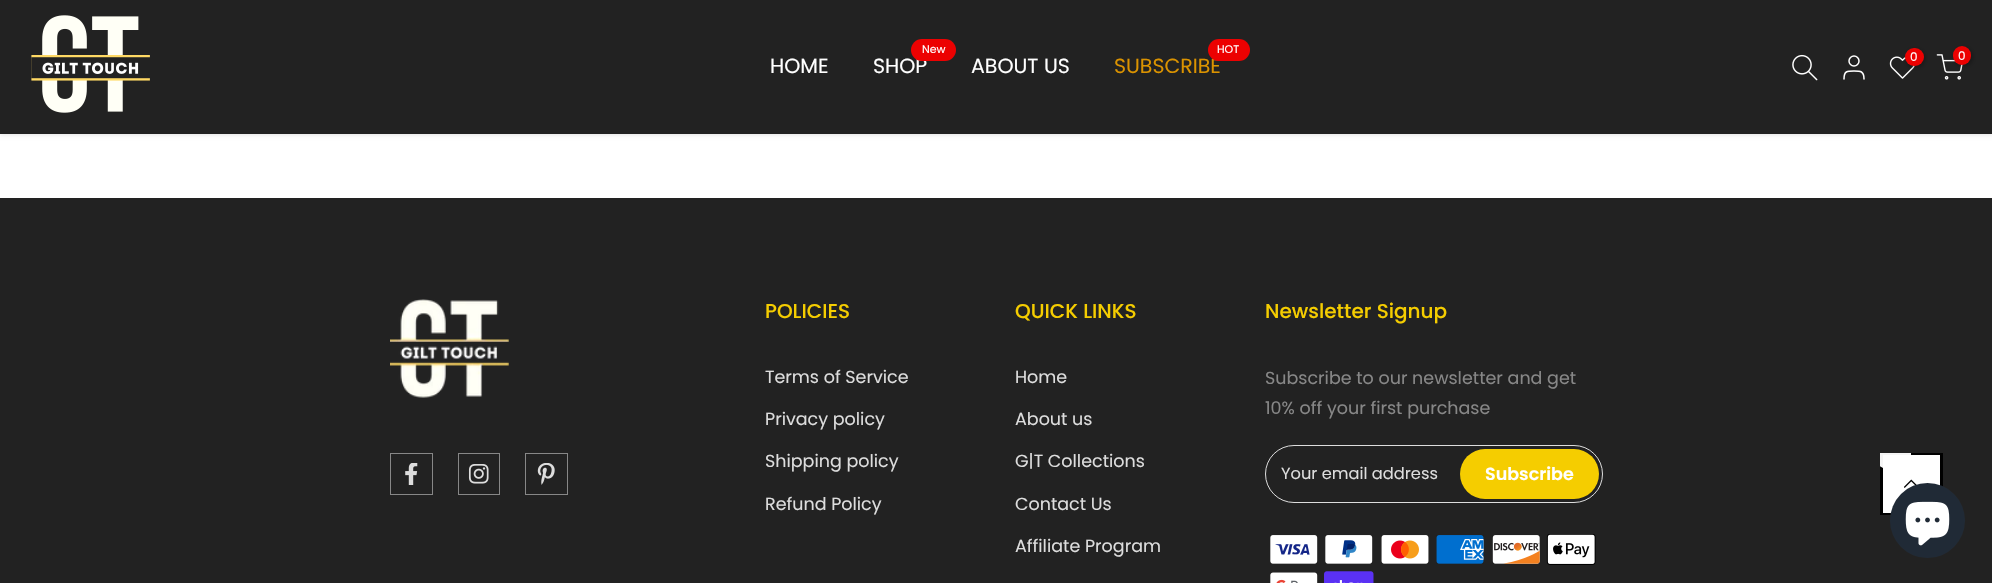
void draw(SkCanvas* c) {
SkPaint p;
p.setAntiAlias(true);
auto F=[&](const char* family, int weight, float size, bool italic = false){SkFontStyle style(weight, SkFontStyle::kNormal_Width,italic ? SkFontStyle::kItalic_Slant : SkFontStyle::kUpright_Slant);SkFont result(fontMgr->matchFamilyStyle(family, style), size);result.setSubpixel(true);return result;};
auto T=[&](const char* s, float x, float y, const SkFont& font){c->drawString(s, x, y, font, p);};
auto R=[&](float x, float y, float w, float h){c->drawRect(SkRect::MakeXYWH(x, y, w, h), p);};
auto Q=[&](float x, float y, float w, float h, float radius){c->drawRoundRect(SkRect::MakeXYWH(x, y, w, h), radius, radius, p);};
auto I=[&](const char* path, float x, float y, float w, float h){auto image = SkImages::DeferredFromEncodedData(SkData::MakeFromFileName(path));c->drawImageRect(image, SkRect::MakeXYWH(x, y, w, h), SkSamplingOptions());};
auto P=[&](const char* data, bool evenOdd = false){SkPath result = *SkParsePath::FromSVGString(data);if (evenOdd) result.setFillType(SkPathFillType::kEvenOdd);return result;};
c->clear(0xffffffff);
p.setColor(0x1a000000);
p.setMaskFilter(SkMaskFilter::MakeBlur(kNormal_SkBlurStyle, 2));
c->drawRect(SkRect::MakeXYWH(0,1,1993,134),p);
p.setMaskFilter(nullptr);
p.setColor(0xff222222);
R(0,0,1992,134);
I("1.png",31,15,119,98);
auto f1 = F("Poppins",400,20.5);
p.setColor(0xffffffff);
T("HOME",770,73,f1);
T("SHOP",873,73,f1);
p.setColor(0xffec0101);
Q(911,39,45,22,11);
auto f2 = F("Poppins",400,11);
p.setColor(0xffffffff);
T("New",922,53,f2);
T("ABOUT US",971,73,f1);
p.setColor(0xffdb9300);
T("SUBSCRIBE",1114,73,f1);
p.setColor(0xffec0101);
Q(1208,39,42,22,11);
p.setColor(0xffffffff);
T("HOT",1217,53,f2);
I("2.png",1792,54,26,27);
p.setStroke(true);
p.setStrokeWidth(1.5);
c->drawCircle(1854,61,5,p);
p.setStrokeCap(SkPaint::kRound_Cap);
p.setStrokeJoin(SkPaint::kRound_Join);
c->drawPath(P("M1864 79c0-8-3.5-8-10-8c-7 0-10 0-10 8"),p);
I("3.png",1889,56,26,23);
p.setStroke(false);
p.setColor(0x4d000000);
p.setMaskFilter(SkMaskFilter::MakeBlur(kNormal_SkBlurStyle, 2));
c->drawRoundRect(SkRect::MakeXYWH(1906,49,19,19),9.5,9.5,p);
p.setMaskFilter(nullptr);
p.setColor(0xffec0101);
Q(1905,48,19,18,9);
auto f3 = F("Poppins",400,12);
p.setColor(0xffffffff);
T("0",1910,61,f3);
I("4.png",1936,54,27,26);
p.setColor(0x4d000000);
p.setMaskFilter(SkMaskFilter::MakeBlur(kNormal_SkBlurStyle, 2));
c->drawRoundRect(SkRect::MakeXYWH(1954,48,19,18),9,9,p);
p.setMaskFilter(nullptr);
p.setColor(0xffec0101);
Q(1953,46,18,19,9);
p.setColor(0xffffffff);
T("0",1958,60,f3);
p.setColor(0xff222222);
R(0,198,1992,385);
I("5.png",390,299,119,99);
p.setStroke(true);
p.setStrokeWidth(1);
p.setStrokeCap(SkPaint::kButt_Cap);
p.setStrokeJoin(SkPaint::kMiter_Join);
p.setColor(0xff878787);
c->drawRect(SkRect::MakeXYWH(390.5,453.5,42,41),p);
I("6.png",405,463,13,22);
c->drawRect(SkRect::MakeXYWH(458.5,453.5,41,41),p);
I("7.png",468,464,21,20);
c->drawRect(SkRect::MakeXYWH(525.5,453.5,42,41),p);
I("8.png",537,463,18,22);
auto f4 = F("Poppins",500,20);
p.setStroke(false);
p.setColor(0xfff5cd00);
T("POLICIES",765,318,f4);
auto f5 = F("Poppins",400,17.5);
p.setColor(0xffdddddd);
T("Terms of Service",765,383,f5);
T("Privacy policy",765,425,f5);
T("Shipping policy",765,467,f5);
T("Refund Policy",765,510,f5);
p.setColor(0xfff5cd00);
T("QUICK LINKS",1015,318,f4);
p.setColor(0xffdddddd);
T("Home",1015,383,f5);
T("About us",1015,425,f5);
T("G|T Collections",1015,467,f5);
T("Contact Us",1015,510,f5);
T("Affiliate Program",1015,552,f5);
p.setColor(0xfff5cd00);
T("Newsletter Signup",1265,318,f4);
p.setColor(0xff878787);
T("Subscribe to our newsletter and get",1265,384,f5);
T("10% off your first purchase",1265,414,f5);
p.setStroke(true);
p.setColor(0xffdddddd);
c->drawRoundRect(SkRect::MakeXYWH(1265.5,445.5,337,57),28.5,28.5,p);
auto f6 = F("Poppins",400,16.25);
p.setStroke(false);
T("Your email address",1281,479,f6);
p.setColor(0xfff5cd00);
Q(1460,449,139,50,25);
auto f7 = F("Poppins",600,17.5);
p.setColor(0xffffffff);
T("Subscribe",1485,480,f7);
I("9.png",1270,535,48,29);
I("10.png",1325,535,48,29);
I("11.png",1381,535,48,29);
I("12.png",1436,535,48,29);
I("13.png",1492,535,48,29);
I("14.png",1546,534,50,31);
I("15.png",1270,572,48,11);
I("16.png",1324,571,50,12);
c->save();
c->clipRect(SkRect::MakeXYWH(1880,453,63,62));
p.setColor(0xff000000);
c->drawPath(P("M1911 484v-133c60 0 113 40 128 98c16 58-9 119-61 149c-52 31-118 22-160-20c-43-42-52-108-22-160z"),p);
p.setColor(0xfff5f5f5);
c->drawPath(P("M1911 484l-115-66c24-41 68-67 115-67z"),p);
c->restore();
p.setColor(0xffffffff);
R(1883,455,57,58);
I("17.png",1904,479,13,9);
p.setColor(0xff202a36);
c->drawCircle(1927.5,520.5,37.5,p);
I("18.png",1905,501,45,45);
}
